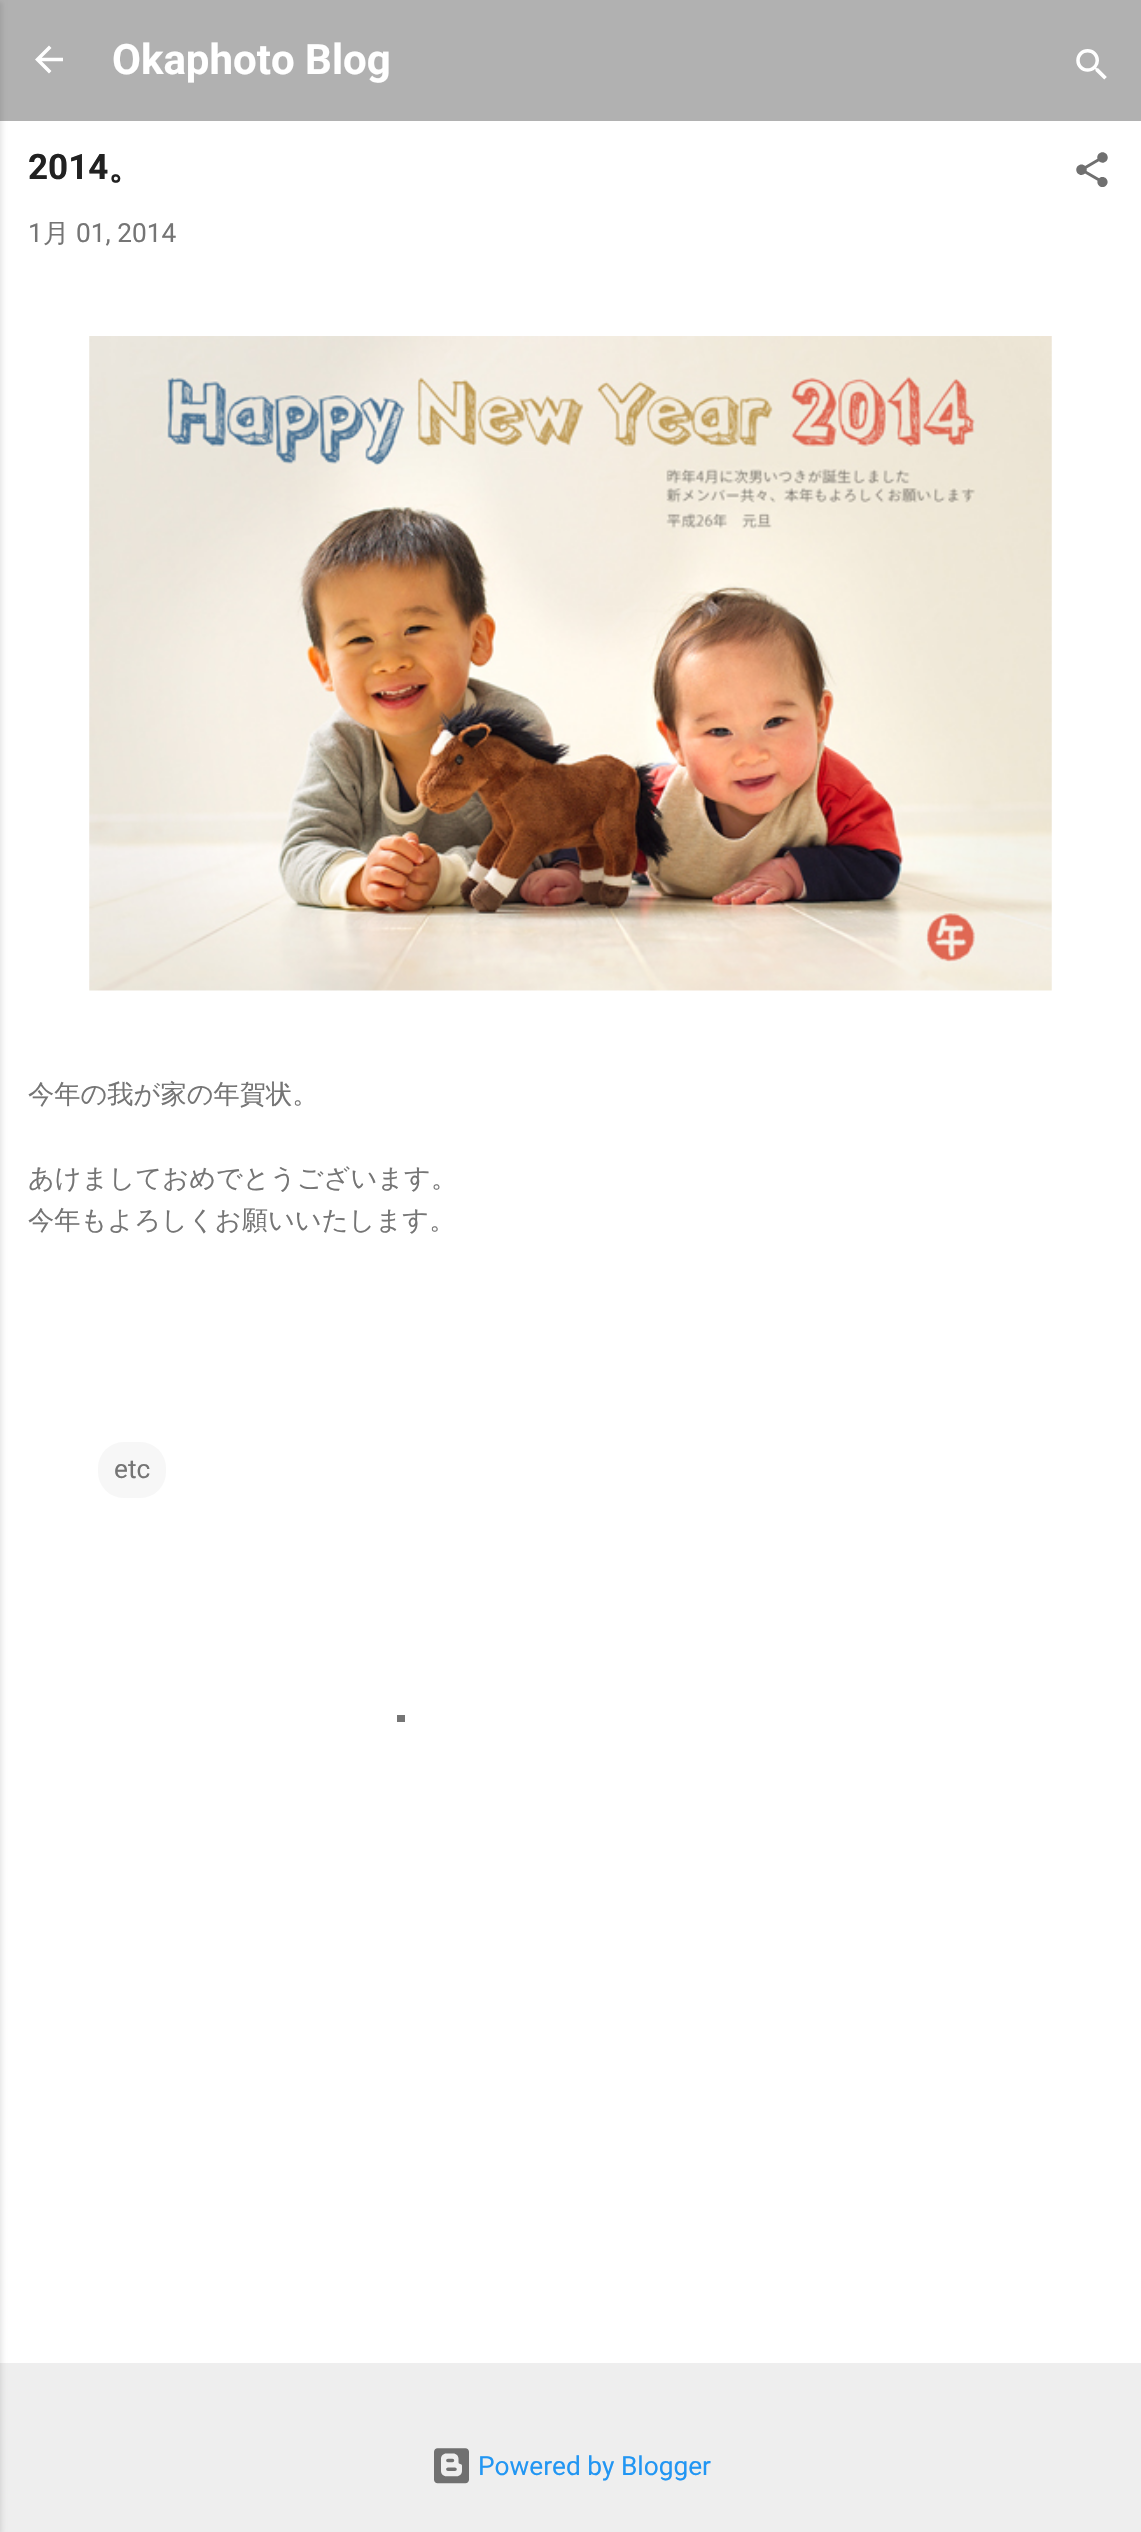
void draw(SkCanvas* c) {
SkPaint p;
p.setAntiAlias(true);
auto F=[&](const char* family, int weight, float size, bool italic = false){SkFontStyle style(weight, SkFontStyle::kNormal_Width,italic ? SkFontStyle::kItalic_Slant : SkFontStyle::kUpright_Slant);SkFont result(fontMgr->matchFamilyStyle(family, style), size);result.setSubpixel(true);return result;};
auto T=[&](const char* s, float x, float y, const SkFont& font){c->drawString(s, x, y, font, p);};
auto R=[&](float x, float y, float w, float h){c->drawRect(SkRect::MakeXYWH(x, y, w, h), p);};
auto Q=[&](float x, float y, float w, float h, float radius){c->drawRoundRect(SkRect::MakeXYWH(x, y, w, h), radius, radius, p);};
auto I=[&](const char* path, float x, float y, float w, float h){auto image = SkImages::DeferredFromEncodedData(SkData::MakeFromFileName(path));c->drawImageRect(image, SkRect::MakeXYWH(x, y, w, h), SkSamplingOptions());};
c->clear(0xffeeeeee);
p.setColor(0xffb1b1b1);
R(0,0,1141,121);
p.setColor(0xffffffff);
R(0,121,1141,2242);
p.setColor(0x1a000000);
p.setMaskFilter(SkMaskFilter::MakeBlur(kNormal_SkBlurStyle, 2.5));
c->drawRect(SkRect::MakeXYWH(-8,2,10,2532),p);
p.setMaskFilter(nullptr);
I("1.png",35,45,28,29);
auto f1 = F("Roboto",700,42);
p.setColor(0xffffffff);
T("Okaphoto Blog",112,74,f1);
I("2.png",1076,49,31,31);
auto f2 = F("Roboto",700,35);
p.setColor(0xff212121);
T("2014",28,179,f2);
auto f3 = F("WenQuanYi Zen Hei",700,35);
T("。",108,179,f3);
I("3.png",1076,152,32,35);
auto f4 = F("Roboto",400,26.25);
p.setColor(0xff757575);
T("1",28,242,f4);
auto f5 = F("WenQuanYi Zen Hei",500,26.25);
T("月",43,242,f5);
T("01, 2014",76,242,f4);
I("4.png",89,336,963,655);
T("今年の我が家の年賀状。",28,1103,f5);
T("あけましておめでとうございます。",28,1187,f5);
T("今年もよろしくお願いいたします。",28,1229,f5);
p.setColor(0xfff7f7f7);
Q(98,1442,68,56,26);
p.setColor(0xff757575);
T("etc",114,1478,f4);
I("5.png",434,2448,35,36);
p.setColor(0xff2196f3);
T("Powered by Blogger",478,2475,f4);
p.setColor(0xff757575);
R(397,1715,8,7);
}
